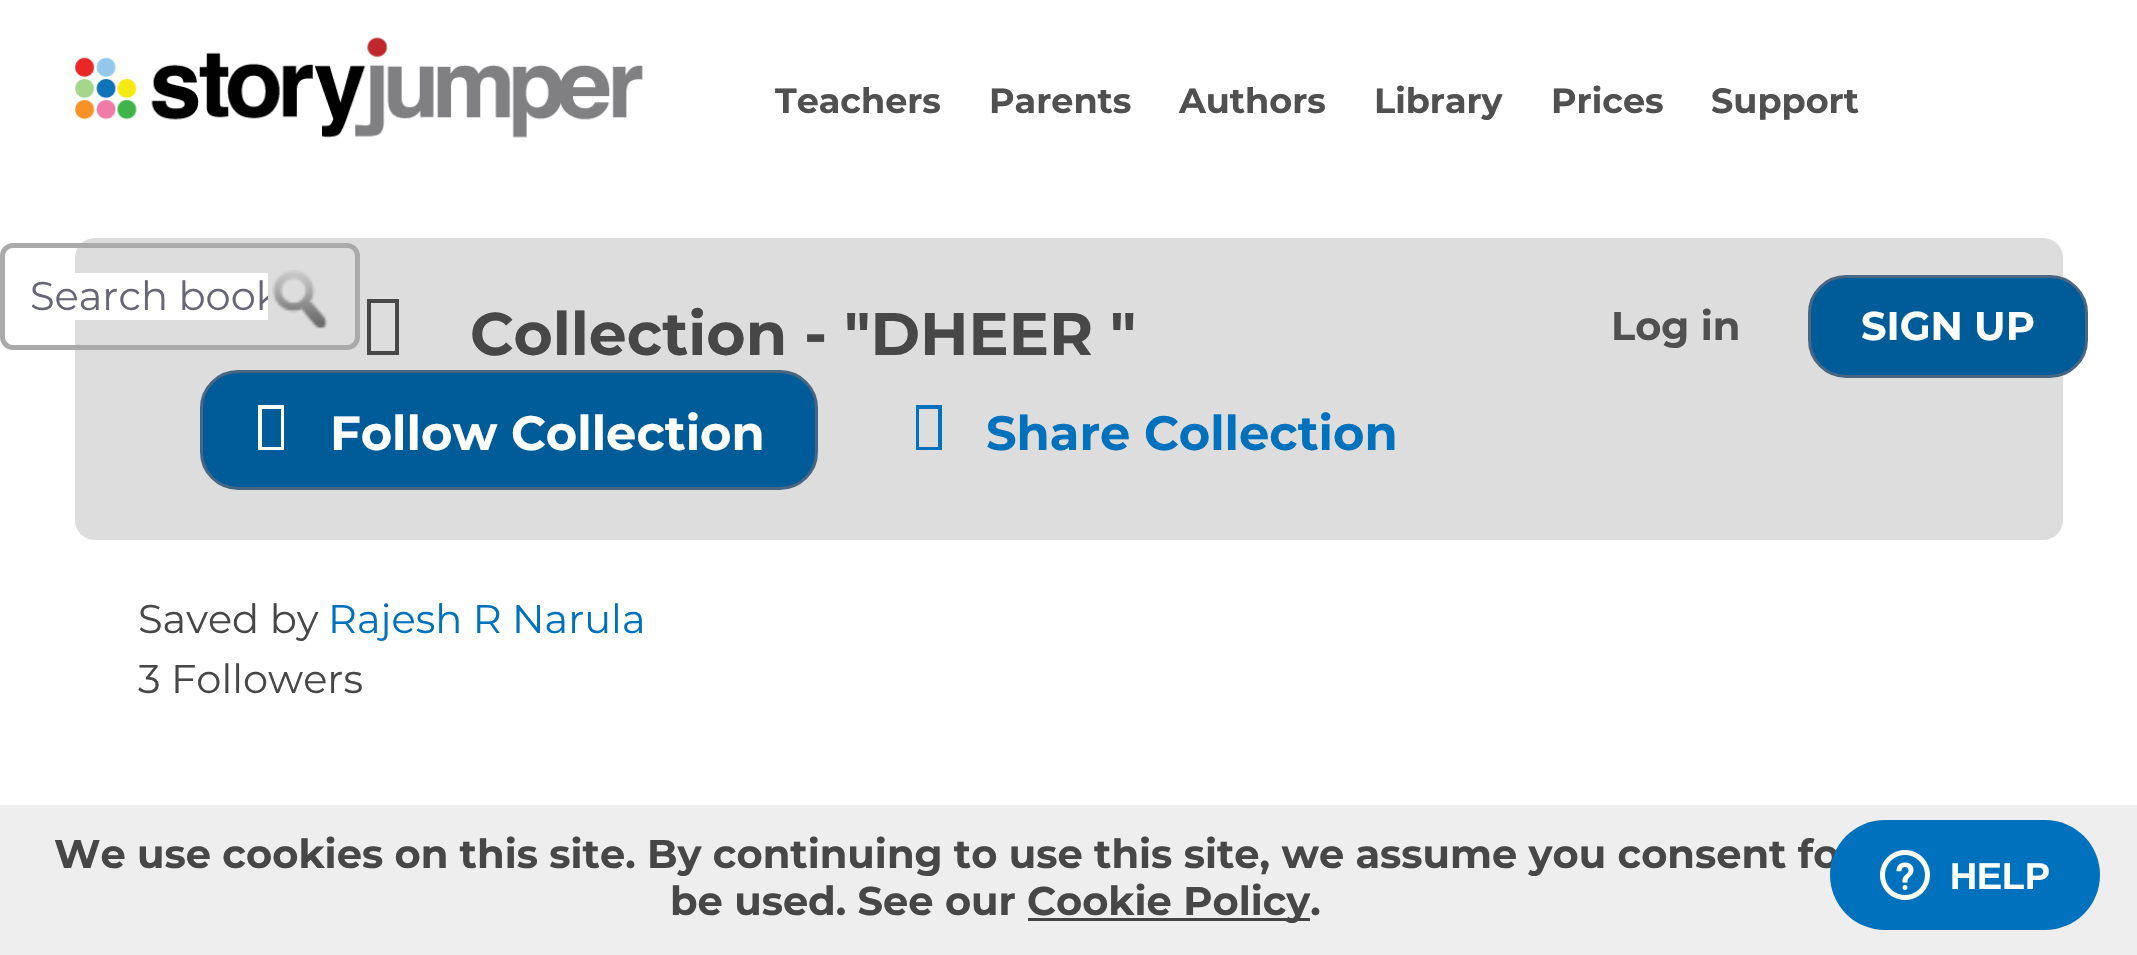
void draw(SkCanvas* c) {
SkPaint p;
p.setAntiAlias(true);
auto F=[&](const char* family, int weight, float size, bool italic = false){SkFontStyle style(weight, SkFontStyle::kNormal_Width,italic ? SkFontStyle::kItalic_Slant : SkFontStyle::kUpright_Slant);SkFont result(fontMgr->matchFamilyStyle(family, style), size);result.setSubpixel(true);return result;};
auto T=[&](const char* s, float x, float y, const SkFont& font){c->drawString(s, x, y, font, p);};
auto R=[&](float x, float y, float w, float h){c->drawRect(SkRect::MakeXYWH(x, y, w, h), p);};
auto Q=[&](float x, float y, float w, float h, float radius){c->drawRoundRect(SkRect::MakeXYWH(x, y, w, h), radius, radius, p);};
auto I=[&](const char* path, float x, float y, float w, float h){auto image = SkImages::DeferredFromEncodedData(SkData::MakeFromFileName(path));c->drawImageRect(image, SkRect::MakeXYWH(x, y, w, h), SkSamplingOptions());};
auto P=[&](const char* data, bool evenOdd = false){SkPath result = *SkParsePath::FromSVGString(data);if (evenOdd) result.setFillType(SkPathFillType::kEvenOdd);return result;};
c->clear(0xffffffff);
I("1.png",75,37,568,101);
auto f1 = F("Montserrat",700,35);
p.setColor(0xff505050);
T("Teachers",775,113,f1);
T("Parents",989,113,f1);
T("Authors",1179,113,f1);
T("Library",1374,113,f1);
T("Prices",1551,113,f1);
T("Support",1711,113,f1);
p.setColor(0xffdddddd);
Q(75,238,1988,302,20);
p.setStroke(true);
p.setStrokeWidth(5);
p.setColor(0xffaaaaaa);
c->drawRoundRect(SkRect::MakeXYWH(2.5,245.5,355,102),10.5,10.5,p);
p.setStroke(false);
p.setColor(0xffffffff);
R(75,273,193,47);
c->save();
c->clipRect(SkRect::MakeXYWH(30,273,238,47));
auto f2 = F("Montserrat",400,40);
p.setColor(0xff666677);
T("Search book",30,310,f2);
c->restore();
I("2.png",272,270,56,59);
auto f3 = F("Montserrat",700,40);
p.setColor(0xff505050);
T("Log in",1611,340,f3);
p.setColor(0xff005c99);
c->drawRoundRect(SkRect::MakeXYWH(1809.5,276.5,277,100),36.5,36.5,p);
p.setStroke(true);
p.setStrokeWidth(3);
p.setColor(0xff486582);
c->drawRoundRect(SkRect::MakeXYWH(1809.5,276.5,277,100),36.5,36.5,p);
p.setStroke(false);
p.setColor(0xffffffff);
T("SIGN UP",1861,340,f3);
p.setColor(0xff474747);
c->drawPath(P("M367 355v-56h32v56zm4-4h24v-48h-24z"),p);
auto f4 = F("Montserrat",700,60);
T("Collection - \"DHEER \"",470,355,f4);
p.setColor(0xff005c99);
c->drawRoundRect(SkRect::MakeXYWH(201.5,371.5,615,117),36.5,36.5,p);
p.setStroke(true);
p.setColor(0xff486582);
c->drawRoundRect(SkRect::MakeXYWH(201.5,371.5,615,117),36.5,36.5,p);
p.setStroke(false);
p.setColor(0xffffffff);
c->drawPath(P("M258 450v-45h26v45zm4-3h19v-38h-19z"),p);
auto f5 = F("Montserrat",700,48);
T("Follow Collection",330,450,f5);
p.setColor(0xff0071bc);
c->drawPath(P("M916 450v-45h26v45zm3-3h19v-38h-19z"),p);
T("Share Collection",986,450,f5);
p.setColor(0xff474747);
T("Saved by",138,633,f2);
p.setColor(0xff0071bc);
T("Rajesh R Narula",328,633,f2);
p.setColor(0xff474747);
T("3 Followers",138,693,f2);
p.setColor(0xffeeeeee);
R(0,805,2137,150);
p.setColor(0xff474747);
T("We use cookies on this site. By continuing to use this site, we assume you consent fo",54,868,f3);
T("be used. See our",670,915,f3);
p.setColor(0xff444444);
R(1028,918,282,3);
p.setColor(0xff474747);
T("Cookie Policy.",1027,915,f3);
p.setColor(0xff0071bc);
Q(1830,820,270,110,55);
I("3.png",1880,850,50,50);
auto f6 = F("Liberation Sans",700,37.5);
p.setColor(0xffffffff);
T("HELP",1950,889,f6);
}
